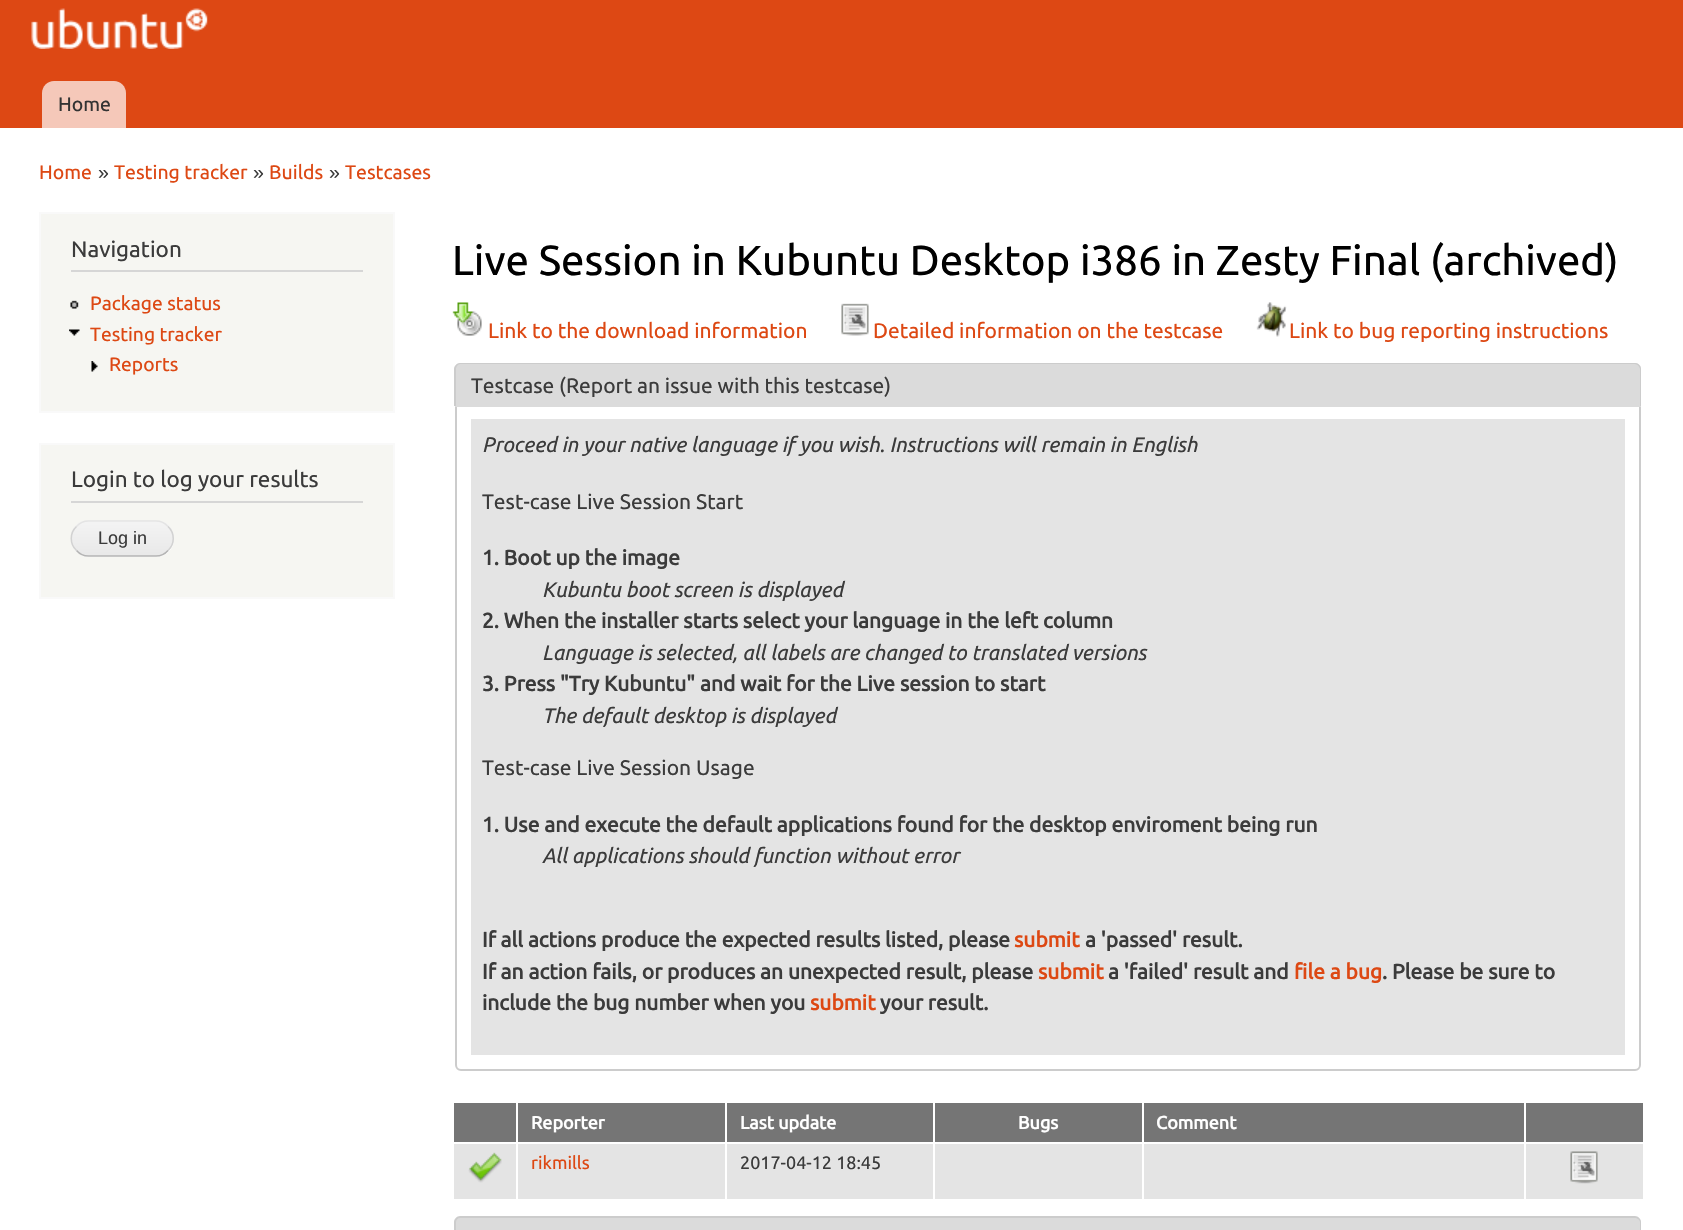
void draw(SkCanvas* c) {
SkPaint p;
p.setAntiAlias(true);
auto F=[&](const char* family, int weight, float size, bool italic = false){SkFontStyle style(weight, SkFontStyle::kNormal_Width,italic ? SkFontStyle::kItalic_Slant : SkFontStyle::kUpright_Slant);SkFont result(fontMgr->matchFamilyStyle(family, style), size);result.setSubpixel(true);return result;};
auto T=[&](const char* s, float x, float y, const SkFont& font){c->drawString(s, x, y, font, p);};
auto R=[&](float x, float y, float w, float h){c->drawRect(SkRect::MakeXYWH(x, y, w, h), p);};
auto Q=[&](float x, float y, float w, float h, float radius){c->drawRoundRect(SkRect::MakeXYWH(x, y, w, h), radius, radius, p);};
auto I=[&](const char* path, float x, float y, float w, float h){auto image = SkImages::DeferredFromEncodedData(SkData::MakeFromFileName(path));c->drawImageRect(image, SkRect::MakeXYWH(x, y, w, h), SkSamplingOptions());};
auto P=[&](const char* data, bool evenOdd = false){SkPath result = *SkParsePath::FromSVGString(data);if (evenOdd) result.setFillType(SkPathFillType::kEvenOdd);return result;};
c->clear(0xffffffff);
p.setColor(0xffdd4814);
R(0,0,1683,128);
I("1.png",31,8,177,41);
p.setColor(0xfff5c8b9);
c->drawPath(P("M54 81h60c6.5 0 12 5.5 12 12v35h-84v-35c0-6.5 5.5-12 12-12z"),p);
auto f1 = F("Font",400,19.5);
p.setColor(0xff333333);
T("Home",58,111,f1);
p.setColor(0xffdd4813);
T("Home",39,179,f1);
auto f2 = F("Liberation Sans",400,19.5);
p.setColor(0xff3b3b3b);
T("»",98,179,f2);
p.setColor(0xffdd4813);
T("Testing tracker",114,179,f1);
p.setColor(0xff3b3b3b);
T("»",253,179,f2);
p.setColor(0xffdd4813);
T("Builds",269,179,f1);
p.setColor(0xff3b3b3b);
T("»",329,179,f2);
p.setColor(0xffdd4813);
T("Testcases",345,179,f1);
p.setColor(0xfff6f6f2);
c->drawRect(SkRect::MakeXYWH(40,213,354,199),p);
p.setStroke(true);
p.setStrokeWidth(2);
p.setColor(0xfff9f9f9);
c->drawRect(SkRect::MakeXYWH(40,213,354,199),p);
p.setStroke(false);
p.setColor(0xffd6d6d6);
R(71,270,292,2);
auto f3 = F("Font",400,22.5);
p.setColor(0xff3b3b3b);
T("Navigation",71,257,f3);
I("2.png",70,300,9,9);
auto f4 = F("Font",400,19.25);
p.setColor(0xffdd4813);
T("Package status",90,310,f4);
I("3.png",69,329,11,7);
T("Testing tracker",90,341,f4);
I("4.png",91,361,7,11);
T("Reports",109,371,f4);
p.setColor(0xfff6f6f2);
c->drawRect(SkRect::MakeXYWH(40,444,354,154),p);
p.setStroke(true);
p.setColor(0xfff9f9f9);
c->drawRect(SkRect::MakeXYWH(40,444,354,154),p);
p.setStroke(false);
p.setColor(0xffd6d6d6);
R(71,501,292,2);
p.setColor(0xff3b3b3b);
T("Login to log your results",71,487,f3);
p.setColor(0xffffffff);
Q(71,521,103,36,18);
I("5.png",71,521,103,35);
p.setStroke(true);
p.setStrokeWidth(1.5);
p.setColor(0xffe4e4e4);
c->drawPath(P("M76.5 526.5c3-3.5 7.5-5.5 12-5.5h67.5c4.5 0 9 2 12 5.5"),p);
p.setColor(0xffd2d2d2);
c->drawPath(P("M168 526.5c7 6.5 7 17.5 0 24"),p);
p.setColor(0xffb4b4b4);
c->drawPath(P("M168 550.5c-3 3.5-7.5 5.5-12 5.5h-67.5c-4.5 0-9-2-12-5.5"),p);
p.setColor(0xffd2d2d2);
c->drawPath(P("M76.5 550.5c-7-6.5-7-17.5 0-24"),p);
auto f5 = F("Liberation Sans",400,18);
p.setStroke(false);
p.setColor(0xff3b3b3b);
T("Log in",98,544,f5);
auto f6 = F("Font",400,42);
p.setColor(0xff000000);
T("Live Session in Kubuntu Desktop i386 in Zesty Final (archived)",452,275,f6);
I("6.png",452,302,30,34);
auto f7 = F("Font",400,21);
p.setColor(0xffdd4813);
T("Link to the download information",488,338,f7);
I("7.png",841,303,28,33);
T("Detailed information on the testcase",873,338,f7);
I("8.png",1256,302,31,35);
T("Link to bug reporting instructions",1289,338,f7);
p.setStroke(true);
p.setStrokeWidth(2);
p.setColor(0xffcccccc);
c->drawRoundRect(SkRect::MakeXYWH(456,381,1184,689),5,5,p);
p.setStroke(false);
p.setColor(0xffdbdbdb);
c->drawPath(P("M461 363h1174c3.5 0 6 2.5 6 6v38h-1186v-38c0-3.5 2.5-6 6-6z"),p);
p.setColor(0xffcccccc);
c->drawPath(P("M460 363h1175c3 0 6 3 6 6v37h-1187v-37c0-3 3-6 6-6zm0 1h1175c2 0 5 3 5 5v37h-1184v-37c0-2 2-5 4-5z",true),p);
p.setColor(0xff3b3b3b);
T("Testcase (Report an issue with this testcase)",471,393,f7);
p.setColor(0xffe4e4e4);
R(471,419,1154,636);
auto f8 = F("Ubuntu",400,21,true);
p.setColor(0xff3b3b3b);
T("Proceed in your native language if you wish. Instructions will remain in English",482,452,f8);
T("Test-case Live Session Start",482,509,f7);
auto f9 = F("Font",700,21);
T("1. Boot up the image",482,565,f9);
T("Kubuntu boot screen is displayed",542,597,f8);
T("2. When the installer starts select your language in the left column",482,628,f9);
T("Language is selected, all labels are changed to translated versions",542,660,f8);
T("3. Press \"Try Kubuntu\" and wait for the Live session to start",482,691,f9);
T("The default desktop is displayed",542,723,f8);
T("Test-case Live Session Usage",482,775,f7);
T("1. Use and execute the default applications found for the desktop enviroment being run",482,832,f9);
T("All applications should function without error",542,863,f8);
T("If all actions produce the expected results listed, please",482,947,f9);
p.setColor(0xffdd4813);
T("submit",1014,947,f9);
p.setColor(0xff3b3b3b);
T("a 'passed' result.",1085,947,f9);
T("If an action fails, or produces an unexpected result, please",482,979,f9);
p.setColor(0xffdd4813);
T("submit",1038,979,f9);
p.setColor(0xff3b3b3b);
T("a 'failed' result and",1108,979,f9);
p.setColor(0xffdd4813);
T("file a bug",1294,979,f9);
p.setColor(0xff3b3b3b);
T(". Please be sure to",1382,979,f9);
T("include the bug number when you",482,1010,f9);
p.setColor(0xffdd4813);
T("submit",810,1010,f9);
p.setColor(0xff3b3b3b);
T("your result.",880,1010,f9);
p.setColor(0xff757575);
R(454,1103,62,39);
R(518,1103,207,39);
auto f10 = F("Font",700,18);
p.setColor(0xffffffff);
T("Reporter",531,1129,f10);
p.setColor(0xff757575);
R(727,1103,206,39);
p.setColor(0xffffffff);
T("Last update",740,1129,f10);
p.setColor(0xff757575);
R(935,1103,207,39);
p.setColor(0xffffffff);
T("Bugs",1018,1129,f10);
p.setColor(0xff757575);
R(1144,1103,380,39);
p.setColor(0xffffffff);
T("Comment",1156,1129,f10);
p.setColor(0xff757575);
R(1526,1103,117,39);
p.setColor(0xffe4e4e4);
R(454,1144,1189,55);
I("9.png",468,1152,34,31);
p.setColor(0xffffffff);
R(516,1142,2,58);
auto f11 = F("Font",400,18);
p.setColor(0xffdd4813);
T("rikmills",531,1169,f11);
p.setColor(0xffffffff);
R(725,1142,2,58);
p.setColor(0xff3b3b3b);
T("2017-04-12 18:45",740,1169,f11);
p.setColor(0xffffffff);
R(933,1142,2,58);
R(1142,1142,2,58);
R(1524,1142,2,58);
I("10.png",1570,1151,28,33);
p.setColor(0xffdbdbdb);
c->drawPath(P("M461 1217h1174c3.5 0 6 2.5 6 6v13h-1186v-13c0-3.5 2.5-6 6-6z"),p);
p.setColor(0xffcccccc);
c->drawPath(P("M460 1216h1175c3 0 6 3 6 6v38h-1187v-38c0-3 3-6 6-6zm0 2h1175c2 0 5 2 5 4v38h-1184v-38c0-2 2-4 4-4z",true),p);
}
